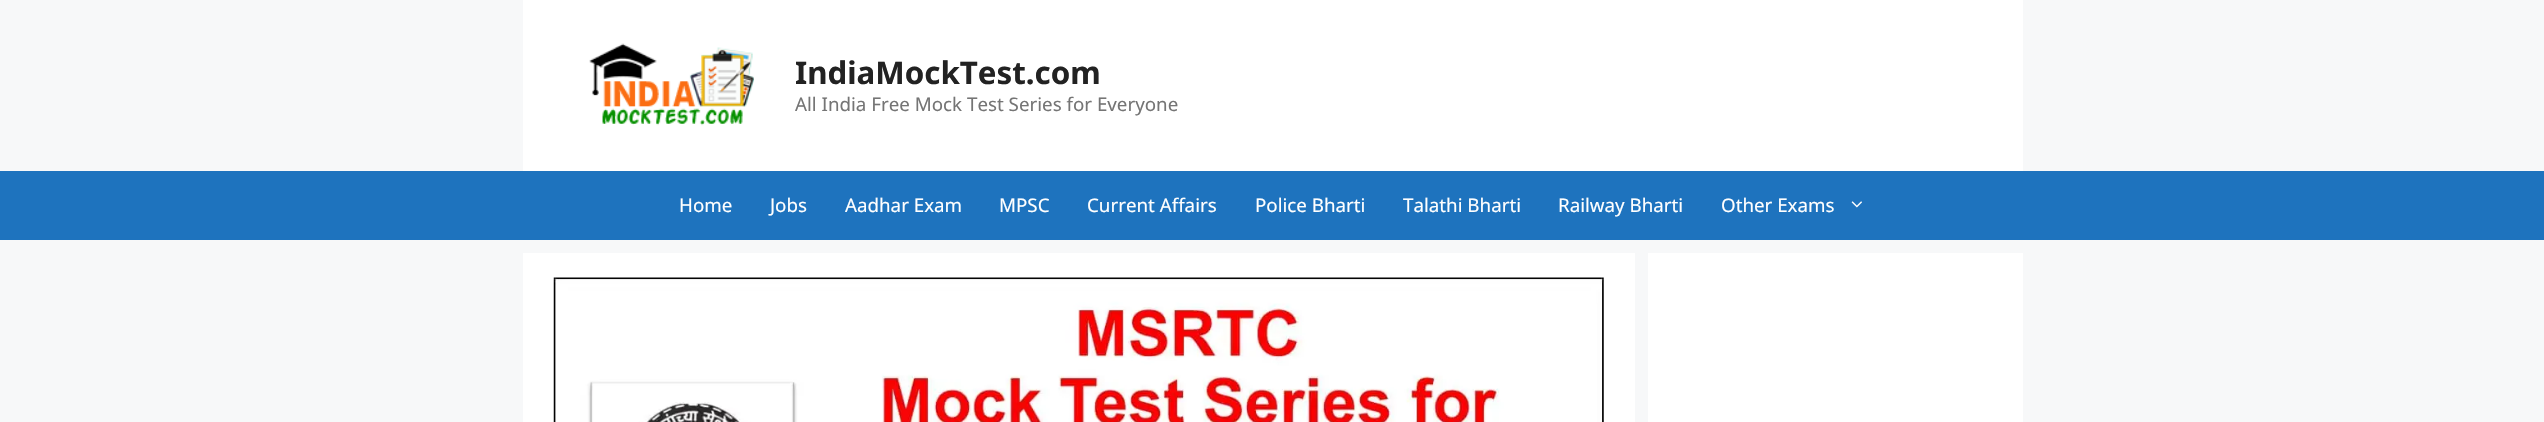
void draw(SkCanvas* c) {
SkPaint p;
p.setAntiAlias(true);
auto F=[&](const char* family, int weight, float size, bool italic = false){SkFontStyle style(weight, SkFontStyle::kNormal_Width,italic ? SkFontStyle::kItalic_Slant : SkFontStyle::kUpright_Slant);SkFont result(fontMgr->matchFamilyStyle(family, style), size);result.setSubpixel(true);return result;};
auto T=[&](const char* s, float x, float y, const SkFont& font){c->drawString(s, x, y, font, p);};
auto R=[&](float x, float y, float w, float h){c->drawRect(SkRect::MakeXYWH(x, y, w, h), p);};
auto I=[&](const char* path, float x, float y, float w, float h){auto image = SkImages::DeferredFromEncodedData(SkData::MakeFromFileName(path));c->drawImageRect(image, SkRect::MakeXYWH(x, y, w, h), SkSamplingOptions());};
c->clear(0xfff7f8f9);
p.setColor(0xffffffff);
R(523,0,1500,171);
I("1.png",589,43,165,83);
auto f1 = F("Noto Sans",700,31.25);
p.setColor(0xff222222);
T("IndiaMockTest.com",795,84,f1);
auto f2 = F("Noto Sans",400,18.75);
p.setColor(0xff757575);
T("All India Free Mock Test Series for Everyone",795,111,f2);
p.setColor(0xff1e73be);
R(0,171,2544,69);
p.setColor(0xffffffff);
T("Home",679,212,f2);
T("Jobs",770,212,f2);
T("Aadhar Exam",845,212,f2);
T("MPSC",999,212,f2);
T("Current Affairs",1087,212,f2);
T("Police Bharti",1255,212,f2);
T("Talathi Bharti",1403,212,f2);
T("Railway Bharti",1558,212,f2);
T("Other Exams",1721,212,f2);
I("2.png",1851,201,11,7);
R(523,253,1112,169);
I("3.png",553,277,1051,145);
R(1648,253,375,169);
}
